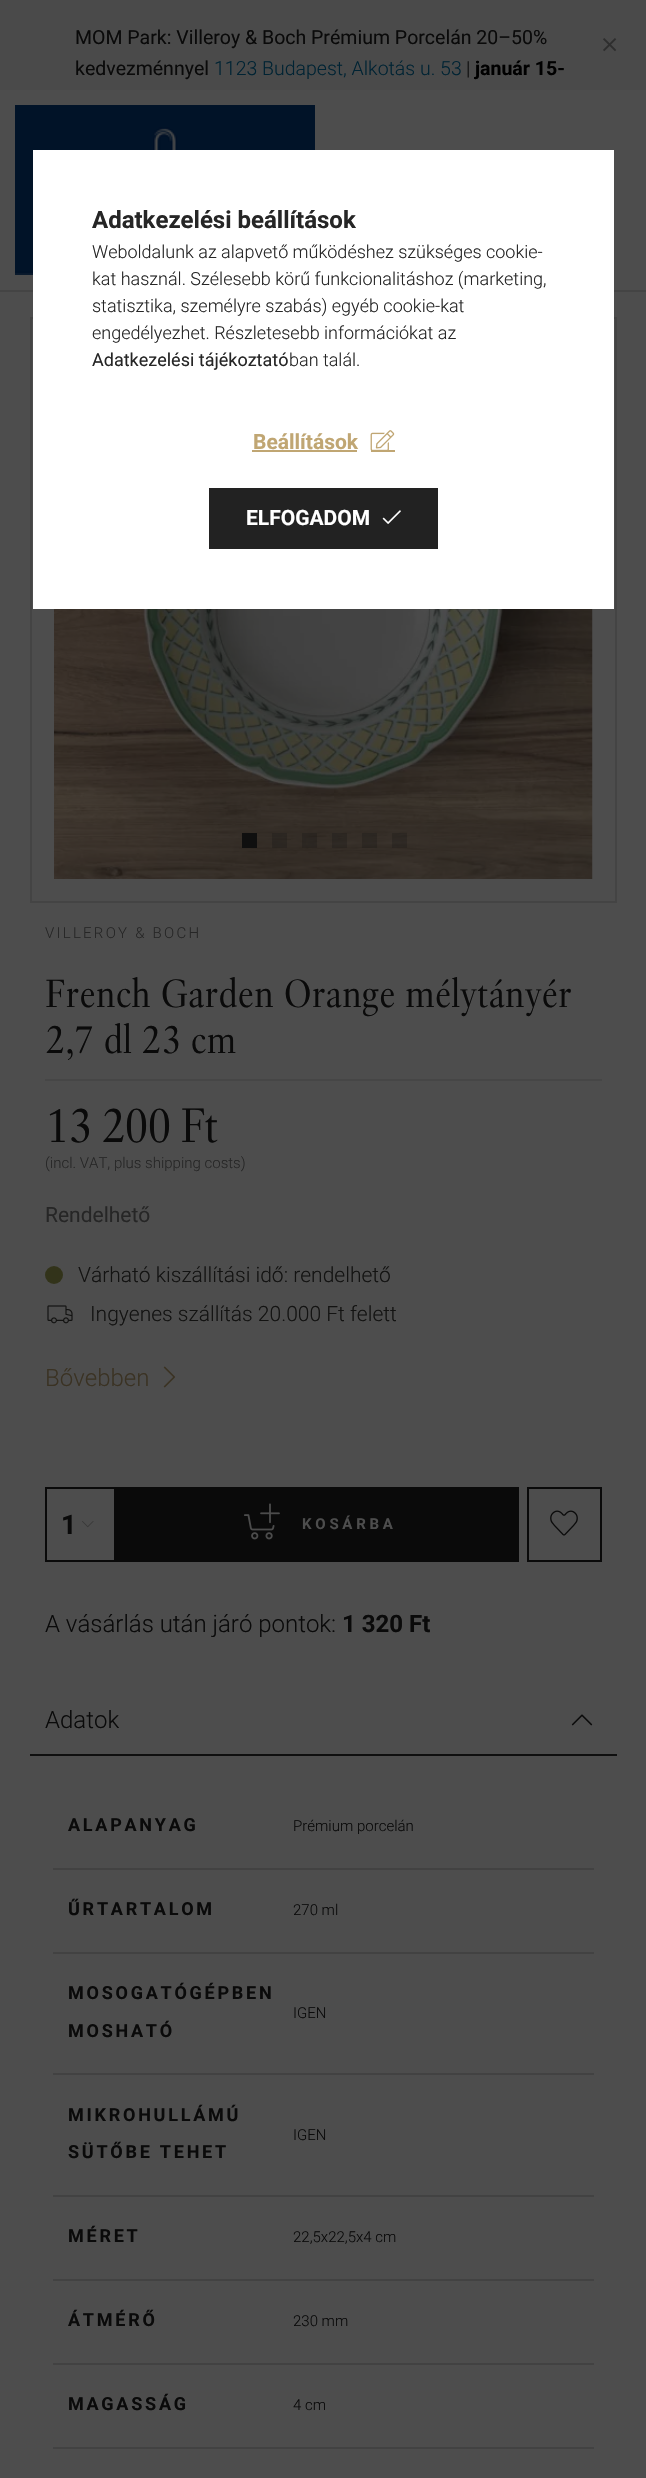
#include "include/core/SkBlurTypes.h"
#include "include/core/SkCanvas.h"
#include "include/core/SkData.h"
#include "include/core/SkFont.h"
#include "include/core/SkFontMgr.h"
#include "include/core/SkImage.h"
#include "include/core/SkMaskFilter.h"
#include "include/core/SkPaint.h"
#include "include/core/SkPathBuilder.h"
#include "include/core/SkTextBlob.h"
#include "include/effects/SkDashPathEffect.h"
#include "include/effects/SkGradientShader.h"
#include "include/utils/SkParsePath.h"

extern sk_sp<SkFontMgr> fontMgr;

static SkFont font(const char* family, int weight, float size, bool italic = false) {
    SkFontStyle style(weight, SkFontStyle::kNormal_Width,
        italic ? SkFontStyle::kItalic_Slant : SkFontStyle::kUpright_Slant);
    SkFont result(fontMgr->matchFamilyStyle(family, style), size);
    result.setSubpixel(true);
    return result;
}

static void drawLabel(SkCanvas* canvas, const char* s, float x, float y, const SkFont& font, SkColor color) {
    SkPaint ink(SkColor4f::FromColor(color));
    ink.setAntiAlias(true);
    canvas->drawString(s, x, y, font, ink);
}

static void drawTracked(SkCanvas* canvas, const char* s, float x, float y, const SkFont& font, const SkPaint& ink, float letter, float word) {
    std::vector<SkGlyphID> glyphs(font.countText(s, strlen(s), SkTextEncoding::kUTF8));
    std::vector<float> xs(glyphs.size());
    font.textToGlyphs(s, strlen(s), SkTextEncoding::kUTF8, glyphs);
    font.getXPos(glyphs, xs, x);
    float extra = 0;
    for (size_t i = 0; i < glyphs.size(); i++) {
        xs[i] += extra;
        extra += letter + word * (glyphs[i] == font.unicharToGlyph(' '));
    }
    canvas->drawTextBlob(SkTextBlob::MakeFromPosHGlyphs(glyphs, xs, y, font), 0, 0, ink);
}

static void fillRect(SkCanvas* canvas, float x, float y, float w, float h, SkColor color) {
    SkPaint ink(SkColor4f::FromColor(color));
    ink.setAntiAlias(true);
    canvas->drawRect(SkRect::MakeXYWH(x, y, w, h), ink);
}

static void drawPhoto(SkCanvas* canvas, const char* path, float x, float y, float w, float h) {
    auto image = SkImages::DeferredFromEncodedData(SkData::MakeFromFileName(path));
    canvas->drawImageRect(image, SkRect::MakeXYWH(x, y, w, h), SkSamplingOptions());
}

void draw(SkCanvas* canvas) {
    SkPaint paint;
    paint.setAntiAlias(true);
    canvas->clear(0xFF4D4D4D);
    fillRect(canvas, 0, 0, 646, 90, 0xFF4A4A4A);
    SkFont font1 = font("Roboto", 400, 19.5f);
    drawLabel(canvas, "MOM Park: Villeroy & Boch Prémium Porcelán 20–50%", 75, 44, font1, 0xFF0A0A0A);
    drawLabel(canvas, "kedvezménnyel", 75, 75, font1, 0xFF0A0A0A);
    SkFont font2 = font("Roboto", 300, 19.5f);
    drawLabel(canvas, "1123 Budapest, Alkotás u. 53", 214, 75, font2, 0xFF002333);
    drawLabel(canvas, "|", 466, 75, font2, 0xFF0A0A0A);
    SkFont font3 = font("Roboto", 700, 19.5f);
    drawLabel(canvas, "január 15-", 475, 75, font3, 0xFF000000);
    drawPhoto(canvas, "assets/img1.png", 603, 38, 14, 14);
    fillRect(canvas, 0, 290, 646, 2, 0xFF444444);
    drawPhoto(canvas, "assets/img2.png", 15, 105, 300, 170);
    paint.setStroke(true);
    paint.setStrokeWidth(2);
    paint.setColor(0xFF444444);
    canvas->drawRect(SkRect::MakeXYWH(31, 318, 585, 584), paint);
    drawPhoto(canvas, "assets/img3.png", 54, 609, 539, 270);
    fillRect(canvas, 242, 833, 15, 15, 0xFF0F0F0F);
    fillRect(canvas, 272, 833, 15, 15, 0x400F0F0F);
    fillRect(canvas, 302, 833, 15, 15, 0x400F0F0F);
    fillRect(canvas, 332, 833, 15, 15, 0x400F0F0F);
    fillRect(canvas, 362, 833, 15, 15, 0x400F0F0F);
    fillRect(canvas, 392, 833, 15, 15, 0x400F0F0F);
    SkFont font4 = font("Roboto", 300, 15);
    paint.setStroke(false);
    paint.setColor(0xFF262626);
    drawTracked(canvas, "VILLEROY & BOCH", 45, 938, font4, paint, 2.25f, 0);
    fillRect(canvas, 45, 1079, 557, 2, 0xFF464646);
    SkFont font5 = font("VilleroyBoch", 400, 39);
    drawLabel(canvas, "French Garden Orange mélytányér", 45, 1007, font5, 0xFF0A0A0A);
    drawLabel(canvas, "2,7 dl 23 cm", 45, 1053, font5, 0xFF0A0A0A);
    SkFont font6 = font("VilleroyBoch", 400, 48);
    paint.setColor(0xFF0A0A0A);
    drawTracked(canvas, "13 200 Ft", 45, 1142, font6, paint, -1.5f, 0);
    drawLabel(canvas, "(incl. VAT, plus shipping costs)", 45, 1168, font4, 0xFF262626);
    SkFont font7 = font("Roboto", 400, 21);
    drawLabel(canvas, "Rendelhető", 45, 1222, font7, 0xFF262626);
    paint.setColor(0xFF32331A);
    canvas->drawCircle(54, 1275, 9, paint);
    SkFont font8 = font("Roboto", 300, 21);
    drawLabel(canvas, "Várható kiszállítási idő: rendelhető", 78, 1282, font8, 0xFF131312);
    drawPhoto(canvas, "assets/img4.png", 47, 1305, 26, 19);
    drawLabel(canvas, "Ingyenes szállítás 20.000 Ft felett", 90, 1321, font8, 0xFF131312);
    SkFont font9 = font("Roboto", 300, 24);
    drawLabel(canvas, "Bővebben", 45, 1386, font9, 0xFF3A3223);
    drawPhoto(canvas, "assets/img5.png", 163, 1366, 13, 22);
    paint.setStroke(true);
    paint.setColor(0xFF0A0A0A);
    canvas->drawRect(SkRect::MakeXYWH(46, 1488, 69, 73), paint);
    SkFont font10 = font("Roboto", 700, 27);
    drawLabel(canvas, "1", 61, 1534, font10, 0xFF0A0A0A);
    drawPhoto(canvas, "assets/img6.png", 82, 1521, 12, 7);
    paint.setStroke(false);
    {
        const SkColor colors[] = {0xFF3A3223, 0xFF261F17, 0xFF0A0A0A, 0xFF0A0A0A};
        const float stops[] = {0, 0.33f, 0.67f, 1};
        const SkPoint ends[] = {{-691, 1524}, {519, 1524}};
        paint.setShader(SkGradientShader::MakeLinear(ends, colors, stops, 4, SkTileMode::kClamp));
        paint.setAlpha(255);
    }
    canvas->drawRect(SkRect::MakeXYWH(116, 1487, 403, 75), paint);
    drawPhoto(canvas, "assets/img7.png", 244, 1503, 36, 37);
    SkFont font11 = font("Roboto", 700, 15);
    paint.setShader(nullptr);
    paint.setColor(0xFF4D4D4D);
    drawTracked(canvas, "KOSÁRBA", 302, 1529, font11, paint, 3.75f, 0);
    paint.setStroke(true);
    paint.setColor(0xFF0A0A0A);
    canvas->drawRect(SkRect::MakeXYWH(528, 1488, 73, 73), paint);
    drawPhoto(canvas, "assets/img8.png", 550, 1510, 28, 26);
    drawLabel(canvas, "A vásárlás után járó pontok:", 45, 1632, font9, 0xFF0A0A0A);
    SkFont font12 = font("Roboto", 700, 24);
    drawLabel(canvas, "1 320 Ft", 342, 1632, font12, 0xFF0A0A0A);
    fillRect(canvas, 30, 1754, 587, 2, 0xFF0F0F0F);
    drawLabel(canvas, "Adatok", 45, 1728, font9, 0xFF0A0A0A);
    drawPhoto(canvas, "assets/img9.png", 571, 1714, 22, 12);
    SkFont font13 = font("Roboto", 700, 18);
    paint.setStroke(false);
    drawTracked(canvas, "ALAPANYAG", 68, 1831, font13, paint, 2.75f, 0);
    drawLabel(canvas, "Prémium porcelán", 293, 1831, font4, 0xFF0A0A0A);
    fillRect(canvas, 53, 1868, 541, 2, 0xFF424242);
    drawTracked(canvas, "ŰRTARTALOM", 68, 1915, font13, paint, 2.75f, 0);
    drawLabel(canvas, "270 ml", 293, 1915, font4, 0xFF0A0A0A);
    fillRect(canvas, 53, 1952, 541, 2, 0xFF424242);
    drawTracked(canvas, "MOSOGATÓGÉPBEN", 68, 1999, font13, paint, 2.75f, 0);
    drawTracked(canvas, "MOSHATÓ", 68, 2037, font13, paint, 2.75f, 0);
    drawLabel(canvas, "IGEN", 293, 2018, font4, 0xFF0A0A0A);
    fillRect(canvas, 53, 2073, 541, 2, 0xFF424242);
    drawTracked(canvas, "MIKROHULLÁMÚ", 68, 2121, font13, paint, 2.75f, 0);
    drawTracked(canvas, "SÜTŐBE TEHET", 68, 2158, font13, paint, 2.75f, 0);
    drawLabel(canvas, "IGEN", 293, 2140, font4, 0xFF0A0A0A);
    fillRect(canvas, 53, 2195, 541, 2, 0xFF424242);
    drawTracked(canvas, "MÉRET", 68, 2242, font13, paint, 2.75f, 0);
    drawLabel(canvas, "22,5x22,5x4 cm", 293, 2242, font4, 0xFF0A0A0A);
    fillRect(canvas, 53, 2279, 541, 2, 0xFF424242);
    drawTracked(canvas, "ÁTMÉRŐ", 68, 2326, font13, paint, 2.75f, 0);
    drawLabel(canvas, "230 mm", 293, 2326, font4, 0xFF0A0A0A);
    fillRect(canvas, 53, 2363, 541, 2, 0xFF424242);
    drawTracked(canvas, "MAGASSÁG", 68, 2410, font13, paint, 2.75f, 0);
    drawLabel(canvas, "4 cm", 293, 2410, font4, 0xFF0A0A0A);
    fillRect(canvas, 53, 2447, 541, 2, 0xFF424242);
    fillRect(canvas, 33, 150, 581, 459, 0xFFFFFFFF);
    drawLabel(canvas, "Adatkezelési beállítások", 92, 228, font12, 0xFF262626);
    SkFont font14 = font("Roboto", 300, 18);
    drawLabel(canvas, "Weboldalunk az alapvető működéshez szükséges cookie-", 92, 258, font14, 0xFF262626);
    drawLabel(canvas, "kat használ. Szélesebb körű funkcionalitáshoz (marketing,", 92, 285, font14, 0xFF262626);
    drawLabel(canvas, "statisztika, személyre szabás) egyéb cookie-kat", 92, 312, font14, 0xFF262626);
    drawLabel(canvas, "engedélyezhet. Részletesebb információkat az", 92, 339, font14, 0xFF262626);
    SkFont font15 = font("Roboto", 400, 18);
    drawLabel(canvas, "Adatkezelési tájékoztató", 92, 366, font15, 0xFF262626);
    drawLabel(canvas, "ban talál.", 289, 366, font14, 0xFF262626);
    SkFont font16 = font("Roboto", 700, 21);
    drawLabel(canvas, "Beállítások", 253, 449, font16, 0xFFC0A673);
    fillRect(canvas, 252, 450, 105, 2, 0xFFC0A673);
    fillRect(canvas, 371, 450, 24, 2, 0xFFC0A673);
    drawPhoto(canvas, "assets/img10.png", 370, 430, 25, 21);
    {
        const SkColor colors[] = {0xFFC0A673, 0xFF80674D, 0xFF222222, 0xFF222222};
        const float stops[] = {0, 0.33f, 0.67f, 1};
        const SkPoint ends[] = {{-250, 518}, {438, 518}};
        paint.setShader(SkGradientShader::MakeLinear(ends, colors, stops, 4, SkTileMode::kClamp));
        paint.setAlpha(255);
    }
    canvas->drawRect(SkRect::MakeXYWH(209, 488, 229, 61), paint);
    drawLabel(canvas, "ELFOGADOM", 246, 525, font16, 0xFFFFFFFF);
    drawPhoto(canvas, "assets/img11.png", 382, 510, 19, 14);
}
